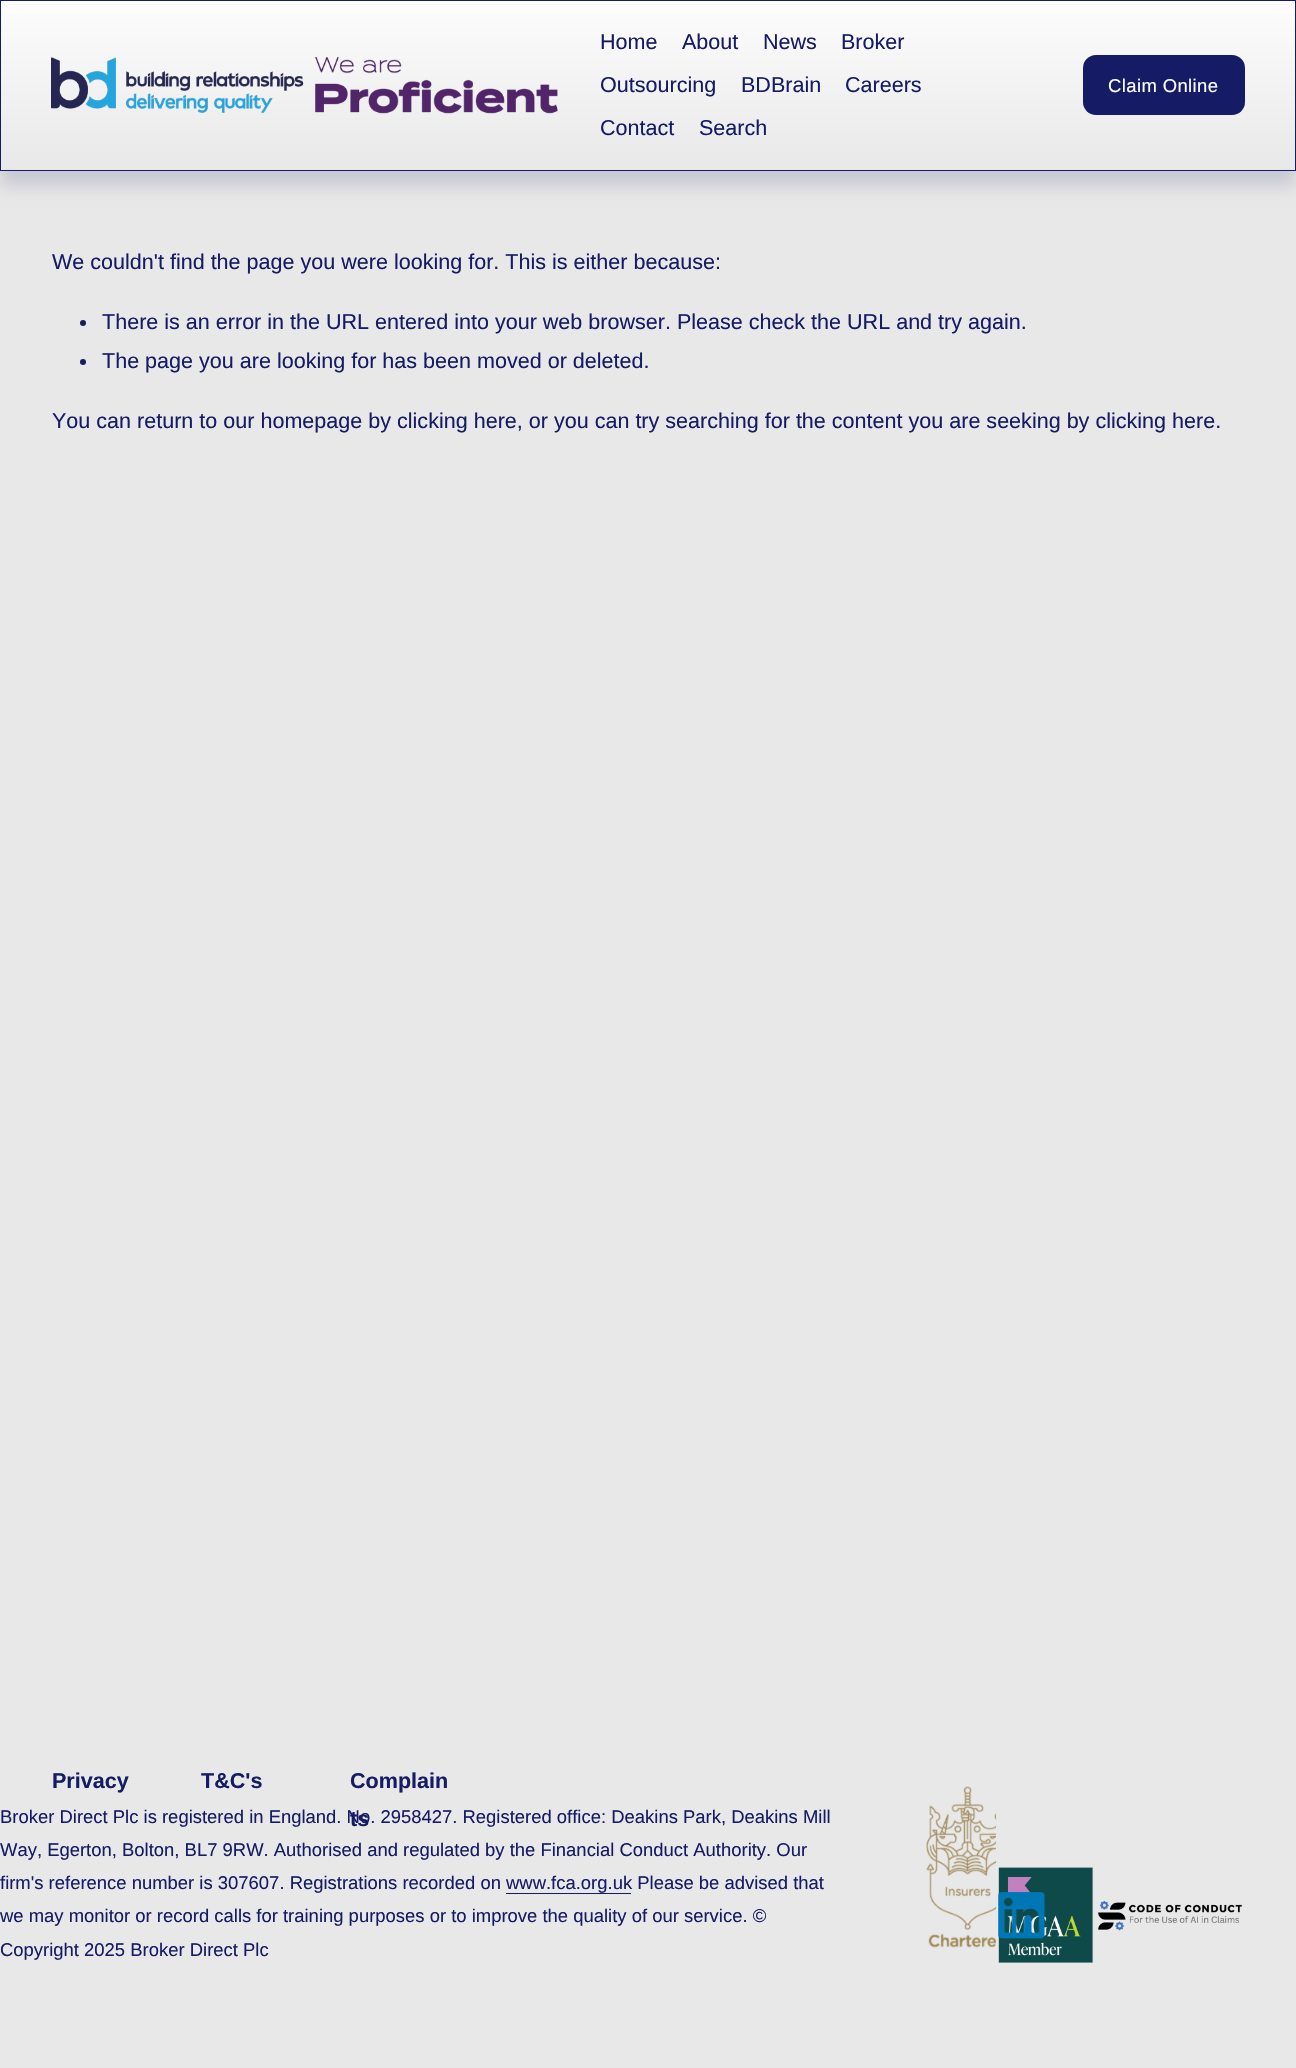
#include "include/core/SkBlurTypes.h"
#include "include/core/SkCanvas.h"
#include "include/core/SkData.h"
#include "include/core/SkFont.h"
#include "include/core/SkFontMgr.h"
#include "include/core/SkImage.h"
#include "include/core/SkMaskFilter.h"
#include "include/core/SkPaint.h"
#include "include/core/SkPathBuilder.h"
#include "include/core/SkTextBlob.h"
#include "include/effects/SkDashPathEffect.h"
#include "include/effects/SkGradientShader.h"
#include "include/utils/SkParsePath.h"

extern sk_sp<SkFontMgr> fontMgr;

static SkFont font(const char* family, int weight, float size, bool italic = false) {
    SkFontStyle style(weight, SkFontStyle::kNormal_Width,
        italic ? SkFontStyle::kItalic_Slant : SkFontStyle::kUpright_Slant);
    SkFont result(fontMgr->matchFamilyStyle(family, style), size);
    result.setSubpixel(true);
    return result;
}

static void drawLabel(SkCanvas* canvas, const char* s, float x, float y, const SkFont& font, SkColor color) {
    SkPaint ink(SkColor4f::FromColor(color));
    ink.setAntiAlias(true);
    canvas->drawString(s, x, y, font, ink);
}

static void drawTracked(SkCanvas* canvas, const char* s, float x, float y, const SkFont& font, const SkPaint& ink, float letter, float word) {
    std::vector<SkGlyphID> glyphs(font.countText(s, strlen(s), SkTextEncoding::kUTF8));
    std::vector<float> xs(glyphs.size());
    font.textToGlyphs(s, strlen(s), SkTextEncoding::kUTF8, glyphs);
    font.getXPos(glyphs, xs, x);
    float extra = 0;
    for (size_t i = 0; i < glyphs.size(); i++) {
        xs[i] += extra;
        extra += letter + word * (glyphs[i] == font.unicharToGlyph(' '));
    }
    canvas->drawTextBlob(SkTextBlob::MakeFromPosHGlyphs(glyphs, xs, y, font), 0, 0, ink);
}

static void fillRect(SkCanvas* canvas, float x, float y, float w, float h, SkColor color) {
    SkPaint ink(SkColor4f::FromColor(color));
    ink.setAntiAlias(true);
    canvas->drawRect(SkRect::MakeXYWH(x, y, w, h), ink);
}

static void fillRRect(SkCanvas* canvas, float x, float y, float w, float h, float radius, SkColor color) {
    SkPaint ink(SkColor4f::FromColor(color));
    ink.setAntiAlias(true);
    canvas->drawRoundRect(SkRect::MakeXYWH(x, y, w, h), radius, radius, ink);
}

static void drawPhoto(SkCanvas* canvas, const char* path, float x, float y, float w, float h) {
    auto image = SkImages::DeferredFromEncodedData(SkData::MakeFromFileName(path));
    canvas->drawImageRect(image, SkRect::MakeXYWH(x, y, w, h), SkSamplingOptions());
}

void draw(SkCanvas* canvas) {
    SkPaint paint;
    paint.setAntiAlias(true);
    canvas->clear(0xFFE8E8E8);
    paint.setColor(0xFFC9C9D4);
    paint.setMaskFilter(SkMaskFilter::MakeBlur(kNormal_SkBlurStyle, 7.5f));
    canvas->drawRect(SkRect::MakeXYWH(0, 15, 1296, 171), paint);
    paint.setMaskFilter(nullptr);
    {
        const SkColor colors[] = {0xFFFDFDFD, 0xFFE8E8E8};
        const float stops[] = {0, 1};
        const SkPoint ends[] = {{648, 0}, {648, 171}};
        paint.setShader(SkGradientShader::MakeLinear(ends, colors, stops, 2, SkTileMode::kClamp));
        paint.setAlpha(255);
    }
    canvas->drawRect(SkRect::MakeXYWH(1, 1, 1294, 169), paint);
    paint.setStroke(true);
    paint.setStrokeWidth(1);
    paint.setShader(nullptr);
    paint.setColor(0xFF161B65);
    canvas->drawRect(SkRect::MakeXYWH(0.5f, 0.5f, 1295, 170), paint);
    drawPhoto(canvas, "assets/img1.png", 51, 56, 507, 58);
    SkFont font1 = font("Liberation Sans", 400, 21.55f);
    drawLabel(canvas, "Home", 600, 49, font1, 0xFF161B65);
    drawLabel(canvas, "About", 682, 49, font1, 0xFF161B65);
    drawLabel(canvas, "News", 763, 49, font1, 0xFF161B65);
    drawLabel(canvas, "Broker", 841, 49, font1, 0xFF161B65);
    drawLabel(canvas, "Outsourcing", 600, 92, font1, 0xFF161B65);
    drawLabel(canvas, "BDBrain", 741, 92, font1, 0xFF161B65);
    drawLabel(canvas, "Careers", 845, 92, font1, 0xFF161B65);
    drawLabel(canvas, "Contact", 600, 135, font1, 0xFF161B65);
    drawLabel(canvas, "Search", 699, 135, font1, 0xFF161B65);
    fillRRect(canvas, 1083, 55, 162, 60, 13, 0xFF161B65);
    SkFont font2 = font("Liberation Sans", 400, 18.45f);
    paint.setStroke(false);
    paint.setColor(0xFFFFFFFF);
    drawTracked(canvas, "Claim Online", 1108, 92, font2, paint, 0.4f, 0);
    drawLabel(canvas, "We couldn't find the page you were looking for. This is either because:", 52, 269, font1, 0xFF161B65);
    paint.setColor(0xFF161B65);
    canvas->drawCircle(83, 323, 3, paint);
    drawLabel(canvas, "There is an error in the URL entered into your web browser. Please check the URL and try again.", 102, 329, font1, 0xFF161B65);
    canvas->drawCircle(83, 362, 3, paint);
    drawLabel(canvas, "The page you are looking for has been moved or deleted.", 102, 368, font1, 0xFF161B65);
    drawLabel(canvas, "You can return to our homepage by clicking here, or you can try searching for the content you are seeking by clicking here.", 52, 428, font1, 0xFF161B65);
    SkFont font3 = font("Liberation Sans", 700, 21.55f);
    drawLabel(canvas, "Privacy", 52, 1788, font3, 0xFF161B65);
    drawLabel(canvas, "T&C's", 201, 1788, font3, 0xFF161B65);
    drawLabel(canvas, "Complain", 350, 1788, font3, 0xFF161B65);
    drawLabel(canvas, "Broker Direct Plc is registered in England. No. 2958427. Registered office: Deakins Park, Deakins Mill", 0, 1823, font2, 0xFF161B65);
    drawLabel(canvas, "ts", 350, 1826, font3, 0xFF161B65);
    drawPhoto(canvas, "assets/img2.png", 926, 1786, 71, 162);
    drawLabel(canvas, "Way, Egerton, Bolton, BL7 9RW. Authorised and regulated by the Financial Conduct Authority. Our", 0, 1856, font2, 0xFF161B65);
    drawLabel(canvas, "firm's reference number is 307607. Registrations recorded on www.fca.org.uk Please be advised that", 0, 1889, font2, 0xFF161B65);
    fillRect(canvas, 506, 1893, 125, 1, 0xFF161B65);
    drawLabel(canvas, "we may monitor or record calls for training purposes or to improve the quality of our service. ©", 0, 1922, font2, 0xFF161B65);
    drawLabel(canvas, "Copyright 2025 Broker Direct Plc", 0, 1956, font2, 0xFF161B65);
    drawPhoto(canvas, "assets/img3.png", 998, 1867, 95, 96);
    drawPhoto(canvas, "assets/img4.png", 998, 1892, 48, 47);
    drawPhoto(canvas, "assets/img5.png", 1098, 1900, 144, 31);
}
